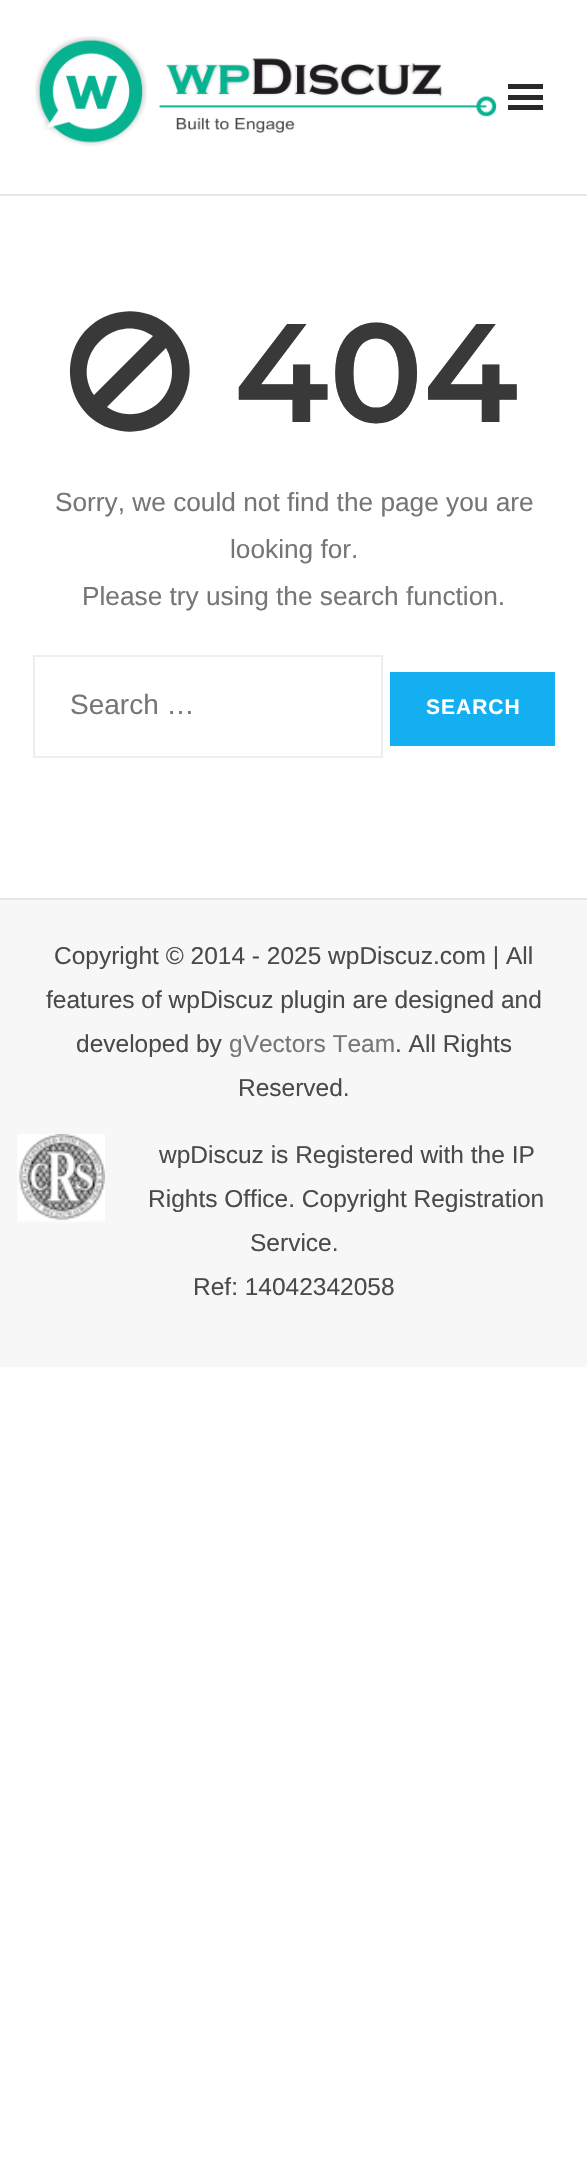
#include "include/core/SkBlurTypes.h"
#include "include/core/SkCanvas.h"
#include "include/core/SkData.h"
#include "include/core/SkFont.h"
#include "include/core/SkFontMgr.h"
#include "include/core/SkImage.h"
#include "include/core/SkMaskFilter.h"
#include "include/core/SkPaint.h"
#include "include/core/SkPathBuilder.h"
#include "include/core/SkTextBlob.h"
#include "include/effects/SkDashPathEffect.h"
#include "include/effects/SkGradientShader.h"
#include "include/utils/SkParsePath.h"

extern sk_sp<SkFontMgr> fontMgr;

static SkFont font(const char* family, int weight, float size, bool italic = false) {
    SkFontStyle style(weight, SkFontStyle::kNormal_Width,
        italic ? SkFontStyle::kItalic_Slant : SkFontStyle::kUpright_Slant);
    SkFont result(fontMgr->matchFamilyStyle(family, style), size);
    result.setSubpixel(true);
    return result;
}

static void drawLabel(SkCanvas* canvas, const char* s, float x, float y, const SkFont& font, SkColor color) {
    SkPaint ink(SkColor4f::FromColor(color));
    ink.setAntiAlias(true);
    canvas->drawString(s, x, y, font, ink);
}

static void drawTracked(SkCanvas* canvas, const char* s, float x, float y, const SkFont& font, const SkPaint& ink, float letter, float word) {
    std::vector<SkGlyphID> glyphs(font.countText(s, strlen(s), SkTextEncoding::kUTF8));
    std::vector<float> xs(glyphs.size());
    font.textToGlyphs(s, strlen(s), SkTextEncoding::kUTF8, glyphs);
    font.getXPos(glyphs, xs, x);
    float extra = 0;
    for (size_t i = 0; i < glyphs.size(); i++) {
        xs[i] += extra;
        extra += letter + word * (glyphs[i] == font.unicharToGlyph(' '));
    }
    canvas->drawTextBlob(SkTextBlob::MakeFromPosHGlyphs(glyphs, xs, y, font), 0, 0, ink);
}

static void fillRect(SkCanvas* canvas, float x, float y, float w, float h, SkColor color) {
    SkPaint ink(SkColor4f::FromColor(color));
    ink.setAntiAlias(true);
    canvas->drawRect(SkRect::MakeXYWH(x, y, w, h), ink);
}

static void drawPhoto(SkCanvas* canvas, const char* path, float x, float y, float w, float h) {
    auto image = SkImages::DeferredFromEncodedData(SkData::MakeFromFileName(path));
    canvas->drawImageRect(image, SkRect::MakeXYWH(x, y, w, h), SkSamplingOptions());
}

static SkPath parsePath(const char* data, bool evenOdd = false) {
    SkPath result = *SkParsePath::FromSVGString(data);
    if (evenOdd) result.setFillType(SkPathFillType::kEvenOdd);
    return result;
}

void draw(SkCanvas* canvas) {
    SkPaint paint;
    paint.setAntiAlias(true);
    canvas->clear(0xFFFFFFFF);
    fillRect(canvas, 0, 194, 587, 2, 0xFFE5E5E5);
    drawPhoto(canvas, "assets/img1.png", 35, 36, 462, 110);
    fillRect(canvas, 508, 84, 35, 5, 0xFF292929);
    fillRect(canvas, 508, 95, 35, 5, 0xFF292929);
    fillRect(canvas, 508, 105, 35, 5, 0xFF292929);
    paint.setColor(0xFF3A3939);
    canvas->drawPath(parsePath("M172 372C172 363 170 355 166 348L107 407C135 426 172 405 172 372ZM94 395L153 336C115 310 69 356 94 395ZM185 348C198 378 183 414 153 427C139 433 124 433 109 428C60 410 56 340 104 317C115 312 127 310 139 312C160 315 177 329 185 348Z"), paint);
    SkFont font1 = font("Montserrat", 600, 140);
    drawLabel(canvas, "404", 234, 422, font1, 0xFF3A3939);
    SkFont font2 = font("Liberation Sans", 400, 26.25f);
    drawLabel(canvas, "Sorry, we could not find the page you are", 55, 511, font2, 0xFF767676);
    drawLabel(canvas, "looking for.", 230, 558, font2, 0xFF767676);
    drawLabel(canvas, "Please try using the search function.", 82, 605, font2, 0xFF767676);
    paint.setStroke(true);
    paint.setStrokeWidth(2);
    paint.setColor(0xFFEEEEEE);
    canvas->drawRect(SkRect::MakeXYWH(34, 656, 348, 101), paint);
    SkFont font3 = font("Liberation Sans", 400, 28);
    drawLabel(canvas, "Search …", 70, 714, font3, 0xFF767676);
    fillRect(canvas, 390, 672, 165, 74, 0xFF13AFF0);
    SkFont font4 = font("Liberation Sans", 700, 21);
    paint.setStroke(false);
    paint.setColor(0xFFFFFFFF);
    drawTracked(canvas, "SEARCH", 426, 714, font4, paint, 1, 0);
    fillRect(canvas, 0, 900, 587, 467, 0xFFF7F7F7);
    fillRect(canvas, 0, 898, 587, 2, 0xFFE7E7E7);
    SkFont font5 = font("Liberation Sans", 400, 24.5f);
    drawLabel(canvas, "Copyright © 2014 - 2025 wpDiscuz.com | All", 54, 964, font5, 0xFF4A4A4A);
    drawLabel(canvas, "features of wpDiscuz plugin are designed and", 46, 1008, font5, 0xFF4A4A4A);
    drawLabel(canvas, "developed by", 76, 1052, font5, 0xFF4A4A4A);
    drawLabel(canvas, "gVectors Team", 229, 1052, font5, 0xFF767676);
    drawLabel(canvas, ". All Rights", 395, 1052, font5, 0xFF4A4A4A);
    drawLabel(canvas, "Reserved.", 238, 1096, font5, 0xFF4A4A4A);
    drawPhoto(canvas, "assets/img2.png", 17, 1134, 88, 88);
    drawLabel(canvas, "wpDiscuz is Registered with the IP", 159, 1163, font5, 0xFF4A4A4A);
    drawLabel(canvas, "Rights Office. Copyright Registration", 148, 1207, font5, 0xFF4A4A4A);
    drawLabel(canvas, "Service.", 250, 1251, font5, 0xFF4A4A4A);
    drawLabel(canvas, "Ref: 14042342058", 193, 1295, font5, 0xFF4A4A4A);
}
